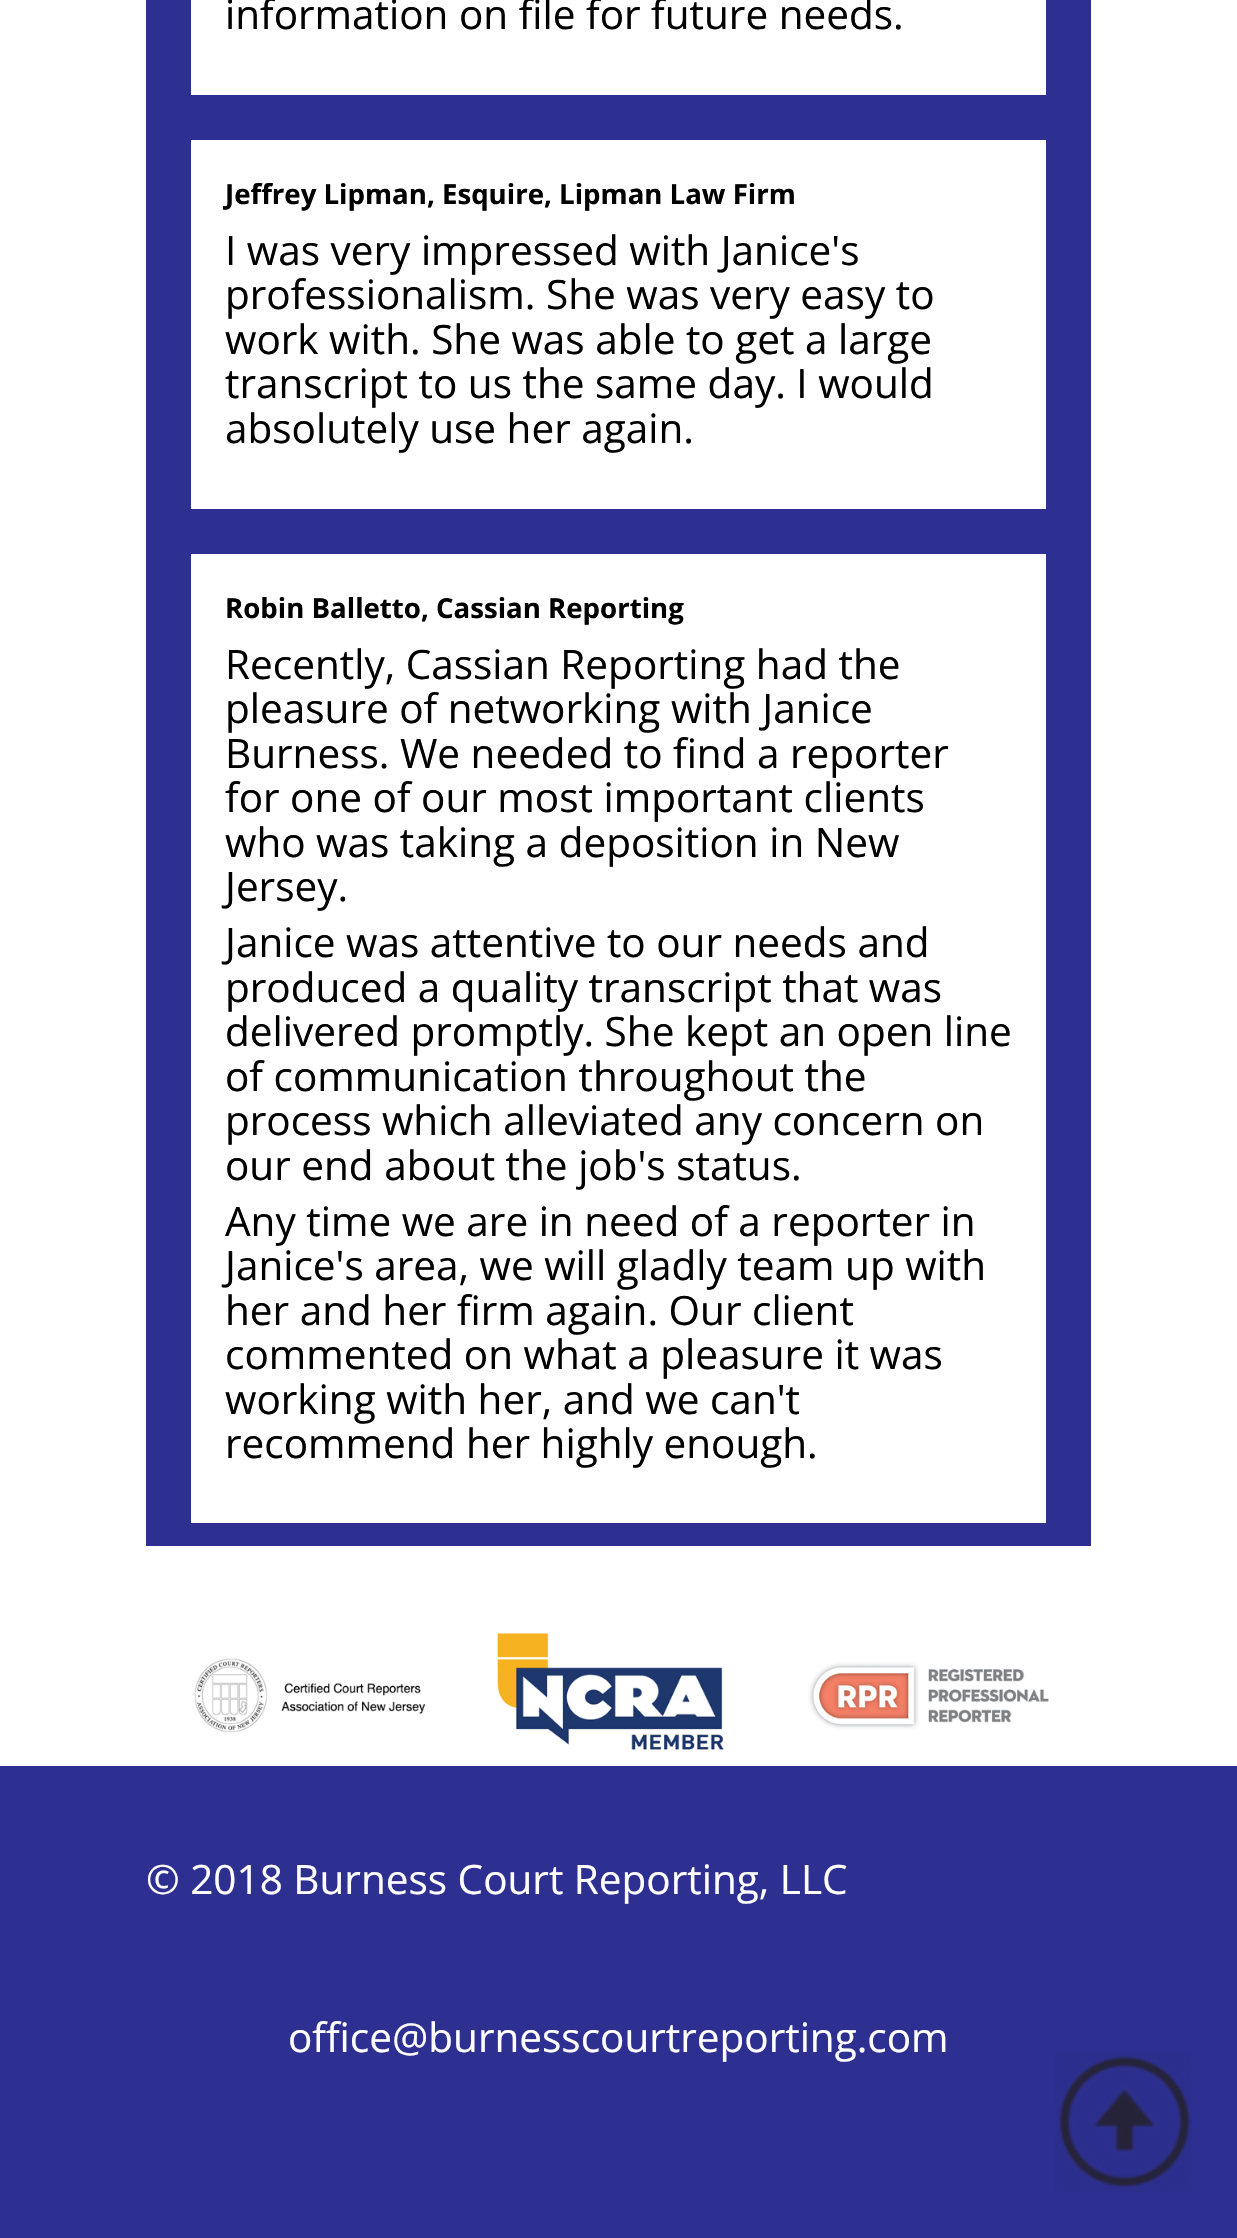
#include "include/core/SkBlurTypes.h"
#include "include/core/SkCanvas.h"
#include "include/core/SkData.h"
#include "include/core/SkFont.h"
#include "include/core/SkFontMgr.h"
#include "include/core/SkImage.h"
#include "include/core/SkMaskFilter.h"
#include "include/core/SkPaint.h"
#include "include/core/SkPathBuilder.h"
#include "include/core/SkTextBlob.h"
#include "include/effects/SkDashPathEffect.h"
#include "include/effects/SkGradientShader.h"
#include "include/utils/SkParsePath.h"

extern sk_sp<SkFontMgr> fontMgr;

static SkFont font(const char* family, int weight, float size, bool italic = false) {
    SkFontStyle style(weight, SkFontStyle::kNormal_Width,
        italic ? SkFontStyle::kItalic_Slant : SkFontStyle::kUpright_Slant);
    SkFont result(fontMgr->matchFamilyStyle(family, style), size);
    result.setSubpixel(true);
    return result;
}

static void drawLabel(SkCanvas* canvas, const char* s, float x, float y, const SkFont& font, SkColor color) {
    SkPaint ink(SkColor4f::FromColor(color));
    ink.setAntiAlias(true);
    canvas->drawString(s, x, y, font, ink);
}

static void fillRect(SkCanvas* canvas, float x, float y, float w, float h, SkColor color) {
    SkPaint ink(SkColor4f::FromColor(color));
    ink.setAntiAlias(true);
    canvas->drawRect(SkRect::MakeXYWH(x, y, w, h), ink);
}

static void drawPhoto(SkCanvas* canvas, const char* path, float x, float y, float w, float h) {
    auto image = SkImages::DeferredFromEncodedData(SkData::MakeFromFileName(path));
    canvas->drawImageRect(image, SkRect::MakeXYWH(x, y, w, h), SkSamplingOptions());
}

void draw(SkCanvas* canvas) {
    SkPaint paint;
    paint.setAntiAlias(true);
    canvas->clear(0xFFFFFFFF);
    fillRect(canvas, 146, 0, 945, 1546, 0xFF2D2F91);
    fillRect(canvas, 191, 0, 855, 95, 0xFFFFFFFF);
    SkFont font1 = font("Open Sans", 400, 40.5f);
    drawLabel(canvas, "information on file for future needs.", 225, 29, font1, 0xFF000000);
    fillRect(canvas, 191, 140, 855, 369, 0xFFFFFFFF);
    SkFont font2 = font("Open Sans", 700, 27.6f);
    drawLabel(canvas, "Jeffrey Lipman, Esquire, Lipman Law Firm", 225, 204, font2, 0xFF000000);
    drawLabel(canvas, "I was very impressed with Janice's", 225, 265, font1, 0xFF000000);
    drawLabel(canvas, "professionalism. She was very easy to", 225, 309, font1, 0xFF000000);
    drawLabel(canvas, "work with. She was able to get a large", 225, 354, font1, 0xFF000000);
    drawLabel(canvas, "transcript to us the same day. I would", 225, 398, font1, 0xFF000000);
    drawLabel(canvas, "absolutely use her again.", 225, 443, font1, 0xFF000000);
    fillRect(canvas, 191, 554, 855, 969, 0xFFFFFFFF);
    drawLabel(canvas, "Robin Balletto, Cassian Reporting", 225, 618, font2, 0xFF000000);
    drawLabel(canvas, "Recently, Cassian Reporting had the", 225, 679, font1, 0xFF000000);
    drawLabel(canvas, "pleasure of networking with Janice", 225, 723, font1, 0xFF000000);
    drawLabel(canvas, "Burness. We needed to find a reporter", 225, 768, font1, 0xFF000000);
    drawLabel(canvas, "for one of our most important clients", 225, 812, font1, 0xFF000000);
    drawLabel(canvas, "who was taking a deposition in New", 225, 857, font1, 0xFF000000);
    drawLabel(canvas, "Jersey.", 225, 901, font1, 0xFF000000);
    drawLabel(canvas, "Janice was attentive to our needs and", 225, 957, font1, 0xFF000000);
    drawLabel(canvas, "produced a quality transcript that was", 225, 1002, font1, 0xFF000000);
    drawLabel(canvas, "delivered promptly. She kept an open line", 225, 1046, font1, 0xFF000000);
    drawLabel(canvas, "of communication throughout the", 225, 1091, font1, 0xFF000000);
    drawLabel(canvas, "process which alleviated any concern on", 225, 1135, font1, 0xFF000000);
    drawLabel(canvas, "our end about the job's status.", 225, 1180, font1, 0xFF000000);
    drawLabel(canvas, "Any time we are in need of a reporter in", 225, 1236, font1, 0xFF000000);
    drawLabel(canvas, "Janice's area, we will gladly team up with", 225, 1280, font1, 0xFF000000);
    drawLabel(canvas, "her and her firm again. Our client", 225, 1325, font1, 0xFF000000);
    drawLabel(canvas, "commented on what a pleasure it was", 225, 1369, font1, 0xFF000000);
    drawLabel(canvas, "working with her, and we can't", 225, 1414, font1, 0xFF000000);
    drawLabel(canvas, "recommend her highly enough.", 225, 1458, font1, 0xFF000000);
    drawPhoto(canvas, "assets/img1.png", 194, 1633, 855, 119);
    fillRect(canvas, 0, 1766, 1237, 472, 0xFF2D2F91);
    drawLabel(canvas, "© 2018 Burness Court Reporting, LLC", 146, 1894, font1, 0xFFFFFFFF);
    drawLabel(canvas, "office@burnesscourtreporting.com", 288, 2052, font1, 0xFFFFFFFF);
    drawPhoto(canvas, "assets/img2.png", 1055, 2052, 137, 140);
}
